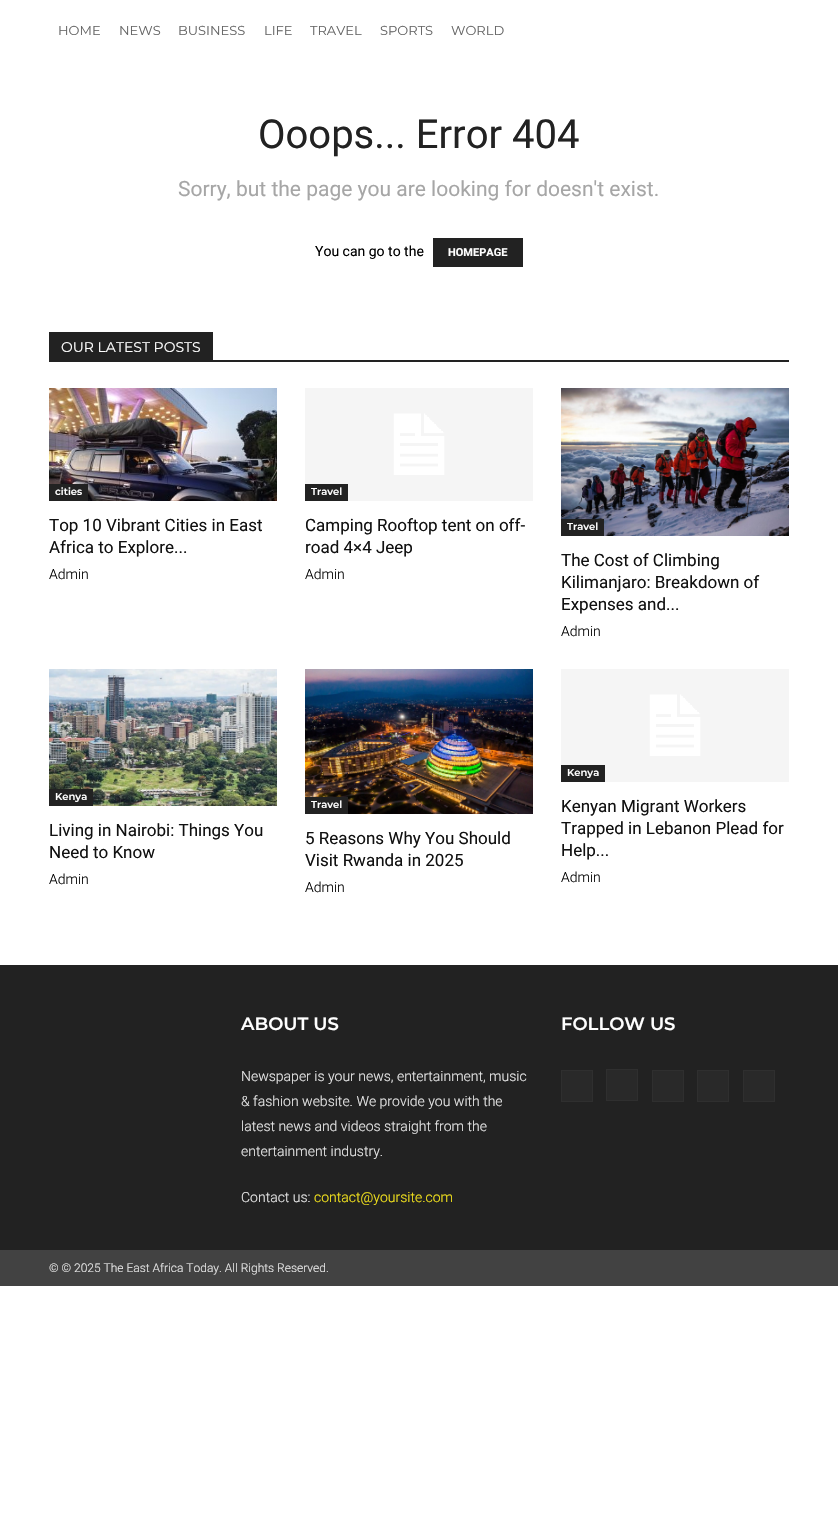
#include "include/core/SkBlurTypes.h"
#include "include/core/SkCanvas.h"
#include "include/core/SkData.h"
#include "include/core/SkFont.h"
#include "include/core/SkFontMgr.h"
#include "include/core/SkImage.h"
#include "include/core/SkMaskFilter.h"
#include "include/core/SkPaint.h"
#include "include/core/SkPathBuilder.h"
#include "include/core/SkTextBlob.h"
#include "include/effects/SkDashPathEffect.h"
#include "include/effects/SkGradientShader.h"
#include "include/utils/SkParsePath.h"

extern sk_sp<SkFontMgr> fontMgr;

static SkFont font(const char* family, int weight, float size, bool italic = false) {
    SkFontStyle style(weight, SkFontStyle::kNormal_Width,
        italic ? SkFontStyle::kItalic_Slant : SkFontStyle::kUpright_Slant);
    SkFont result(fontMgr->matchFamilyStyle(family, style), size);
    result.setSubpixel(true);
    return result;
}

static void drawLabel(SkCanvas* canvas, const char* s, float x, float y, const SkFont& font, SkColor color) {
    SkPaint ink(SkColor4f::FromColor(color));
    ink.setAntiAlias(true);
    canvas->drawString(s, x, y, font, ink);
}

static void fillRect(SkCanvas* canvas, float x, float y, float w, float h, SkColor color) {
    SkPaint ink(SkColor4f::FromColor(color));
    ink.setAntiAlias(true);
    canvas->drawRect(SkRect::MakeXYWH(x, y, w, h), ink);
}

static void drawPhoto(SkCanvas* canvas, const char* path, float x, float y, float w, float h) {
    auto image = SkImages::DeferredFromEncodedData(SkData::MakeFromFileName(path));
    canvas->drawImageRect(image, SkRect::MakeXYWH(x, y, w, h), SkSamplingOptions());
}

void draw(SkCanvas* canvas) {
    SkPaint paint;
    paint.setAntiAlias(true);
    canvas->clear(0xFFFFFFFF);
    SkFont font1 = font("Montserrat", 400, 13);
    drawLabel(canvas, "HOME", 58, 35, font1, 0xFF666666);
    drawLabel(canvas, "NEWS", 119, 35, font1, 0xFF666666);
    drawLabel(canvas, "BUSINESS", 178, 35, font1, 0xFF666666);
    drawLabel(canvas, "LIFE", 264, 35, font1, 0xFF666666);
    drawLabel(canvas, "TRAVEL", 310, 35, font1, 0xFF666666);
    drawLabel(canvas, "SPORTS", 380, 35, font1, 0xFF666666);
    drawLabel(canvas, "WORLD", 451, 35, font1, 0xFF666666);
    SkFont font2 = font("Roboto", 400, 40);
    drawLabel(canvas, "Ooops... Error 404", 258, 148, font2, 0xFF222222);
    SkFont font3 = font("Roboto", 400, 21);
    drawLabel(canvas, "Sorry, but the page you are looking for doesn't exist.", 178, 196, font3, 0xFFA6A6A6);
    SkFont font4 = font("Roboto", 400, 14);
    drawLabel(canvas, "You can go to the", 315, 256, font4, 0xFF000000);
    fillRect(canvas, 433, 238, 90, 29, 0xFF222222);
    SkFont font5 = font("Roboto", 700, 11);
    drawLabel(canvas, "HOMEPAGE", 448, 256, font5, 0xFFFFFFFF);
    fillRect(canvas, 49, 360, 740, 2, 0xFF222222);
    fillRect(canvas, 49, 332, 164, 28, 0xFF222222);
    SkFont font6 = font("Montserrat", 400, 14);
    drawLabel(canvas, "OUR LATEST POSTS", 61, 352, font6, 0xFFFFFFFF);
    drawPhoto(canvas, "assets/img1.png", 49, 388, 228, 113);
    fillRect(canvas, 49, 484, 39, 17, 0xFF222222);
    SkFont font7 = font("Montserrat", 600, 10);
    drawLabel(canvas, "cities", 55, 495, font7, 0xFFFFFFFF);
    SkFont font8 = font("Roboto", 400, 17);
    drawLabel(canvas, "Top 10 Vibrant Cities in East", 49, 531, font8, 0xFF111111);
    drawLabel(canvas, "Africa to Explore...", 49, 553, font8, 0xFF111111);
    SkFont font9 = font("Roboto", 300, 14);
    drawLabel(canvas, "Admin", 49, 579, font9, 0xFF000000);
    drawPhoto(canvas, "assets/img2.png", 305, 388, 228, 113);
    fillRect(canvas, 305, 484, 43, 17, 0xFF222222);
    drawLabel(canvas, "Travel", 311, 495, font7, 0xFFFFFFFF);
    drawLabel(canvas, "Camping Rooftop tent on off-", 305, 531, font8, 0xFF111111);
    drawLabel(canvas, "road 4×4 Jeep", 305, 553, font8, 0xFF111111);
    drawLabel(canvas, "Admin", 305, 579, font9, 0xFF000000);
    drawPhoto(canvas, "assets/img3.png", 561, 388, 228, 148);
    fillRect(canvas, 561, 519, 43, 17, 0xFF222222);
    drawLabel(canvas, "Travel", 567, 530, font7, 0xFFFFFFFF);
    drawLabel(canvas, "The Cost of Climbing", 561, 566, font8, 0xFF111111);
    drawLabel(canvas, "Kilimanjaro: Breakdown of", 561, 588, font8, 0xFF111111);
    drawLabel(canvas, "Expenses and...", 561, 610, font8, 0xFF111111);
    drawLabel(canvas, "Admin", 561, 636, font9, 0xFF000000);
    drawPhoto(canvas, "assets/img4.png", 49, 669, 228, 137);
    fillRect(canvas, 49, 789, 44, 17, 0xFF222222);
    drawLabel(canvas, "Kenya", 55, 800, font7, 0xFFFFFFFF);
    drawLabel(canvas, "Living in Nairobi: Things You", 49, 836, font8, 0xFF111111);
    drawLabel(canvas, "Need to Know", 49, 858, font8, 0xFF111111);
    drawLabel(canvas, "Admin", 49, 884, font9, 0xFF000000);
    drawPhoto(canvas, "assets/img5.png", 305, 669, 228, 145);
    fillRect(canvas, 305, 797, 43, 17, 0xFF222222);
    drawLabel(canvas, "Travel", 311, 808, font7, 0xFFFFFFFF);
    drawLabel(canvas, "5 Reasons Why You Should", 305, 844, font8, 0xFF111111);
    drawLabel(canvas, "Visit Rwanda in 2025", 305, 866, font8, 0xFF111111);
    drawLabel(canvas, "Admin", 305, 892, font9, 0xFF000000);
    drawPhoto(canvas, "assets/img2.png", 561, 669, 228, 113);
    fillRect(canvas, 561, 765, 44, 17, 0xFF222222);
    drawLabel(canvas, "Kenya", 567, 776, font7, 0xFFFFFFFF);
    drawLabel(canvas, "Kenyan Migrant Workers", 561, 812, font8, 0xFF111111);
    drawLabel(canvas, "Trapped in Lebanon Plead for", 561, 834, font8, 0xFF111111);
    drawLabel(canvas, "Help...", 561, 856, font8, 0xFF111111);
    drawLabel(canvas, "Admin", 561, 882, font9, 0xFF000000);
    fillRect(canvas, 0, 965, 838, 285, 0xFF222222);
    SkFont font10 = font("Montserrat", 600, 18);
    drawLabel(canvas, "ABOUT US", 241, 1030, font10, 0xFFFFFFFF);
    drawLabel(canvas, "Newspaper is your news, entertainment, music", 241, 1081, font9, 0xFFEAEAEA);
    drawLabel(canvas, "& fashion website. We provide you with the", 241, 1106, font9, 0xFFEAEAEA);
    drawLabel(canvas, "latest news and videos straight from the", 241, 1131, font9, 0xFFEAEAEA);
    drawLabel(canvas, "entertainment industry.", 241, 1156, font9, 0xFFEAEAEA);
    drawLabel(canvas, "Contact us:", 241, 1202, font9, 0xFFEAEAEA);
    drawLabel(canvas, "contact@yoursite.com", 314, 1202, font9, 0xFFF8E71C);
    drawLabel(canvas, "FOLLOW US", 561, 1030, font10, 0xFFFFFFFF);
    paint.setColor(0xFF292929);
    canvas->drawRect(SkRect::MakeXYWH(561.5f, 1070.5f, 31, 31), paint);
    paint.setStroke(true);
    paint.setStrokeWidth(1);
    paint.setColor(0xFF2F2F2F);
    canvas->drawRect(SkRect::MakeXYWH(561.5f, 1070.5f, 31, 31), paint);
    paint.setStroke(false);
    paint.setColor(0xFF292929);
    canvas->drawRect(SkRect::MakeXYWH(606.5f, 1069.5f, 31, 31), paint);
    paint.setStroke(true);
    paint.setColor(0xFF2F2F2F);
    canvas->drawRect(SkRect::MakeXYWH(606.5f, 1069.5f, 31, 31), paint);
    paint.setStroke(false);
    paint.setColor(0xFF292929);
    canvas->drawRect(SkRect::MakeXYWH(652.5f, 1070.5f, 31, 31), paint);
    paint.setStroke(true);
    paint.setColor(0xFF2F2F2F);
    canvas->drawRect(SkRect::MakeXYWH(652.5f, 1070.5f, 31, 31), paint);
    paint.setStroke(false);
    paint.setColor(0xFF292929);
    canvas->drawRect(SkRect::MakeXYWH(697.5f, 1070.5f, 31, 31), paint);
    paint.setStroke(true);
    paint.setColor(0xFF2F2F2F);
    canvas->drawRect(SkRect::MakeXYWH(697.5f, 1070.5f, 31, 31), paint);
    paint.setStroke(false);
    paint.setColor(0xFF292929);
    canvas->drawRect(SkRect::MakeXYWH(743.5f, 1070.5f, 31, 31), paint);
    paint.setStroke(true);
    paint.setColor(0xFF2F2F2F);
    canvas->drawRect(SkRect::MakeXYWH(743.5f, 1070.5f, 31, 31), paint);
    fillRect(canvas, 0, 1250, 838, 36, 0xFF424242);
    SkFont font11 = font("Roboto", 300, 12);
    drawLabel(canvas, "© © 2025 The East Africa Today. All Rights Reserved.", 49, 1272, font11, 0xFFEAEAEA);
}
